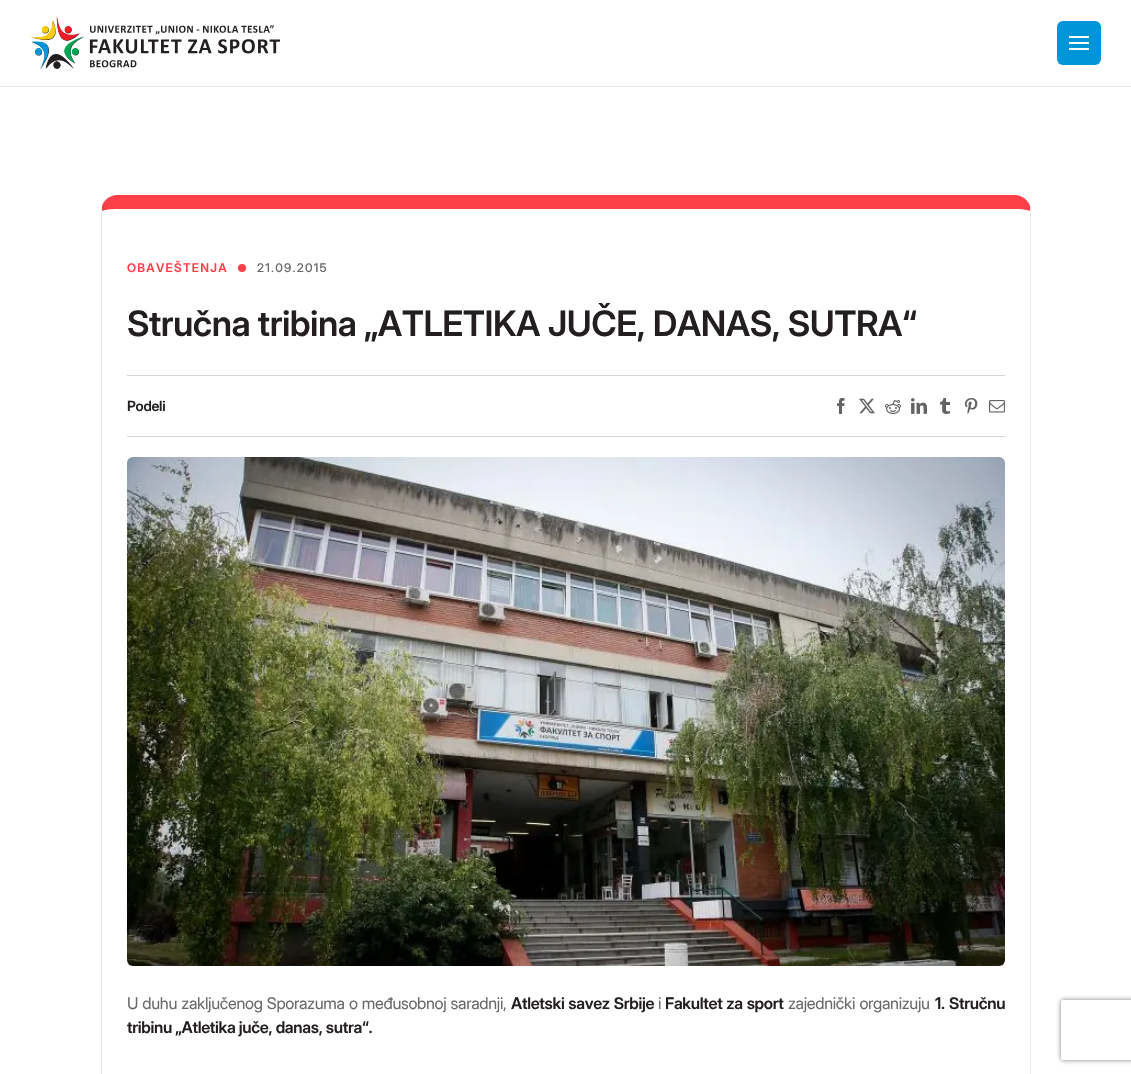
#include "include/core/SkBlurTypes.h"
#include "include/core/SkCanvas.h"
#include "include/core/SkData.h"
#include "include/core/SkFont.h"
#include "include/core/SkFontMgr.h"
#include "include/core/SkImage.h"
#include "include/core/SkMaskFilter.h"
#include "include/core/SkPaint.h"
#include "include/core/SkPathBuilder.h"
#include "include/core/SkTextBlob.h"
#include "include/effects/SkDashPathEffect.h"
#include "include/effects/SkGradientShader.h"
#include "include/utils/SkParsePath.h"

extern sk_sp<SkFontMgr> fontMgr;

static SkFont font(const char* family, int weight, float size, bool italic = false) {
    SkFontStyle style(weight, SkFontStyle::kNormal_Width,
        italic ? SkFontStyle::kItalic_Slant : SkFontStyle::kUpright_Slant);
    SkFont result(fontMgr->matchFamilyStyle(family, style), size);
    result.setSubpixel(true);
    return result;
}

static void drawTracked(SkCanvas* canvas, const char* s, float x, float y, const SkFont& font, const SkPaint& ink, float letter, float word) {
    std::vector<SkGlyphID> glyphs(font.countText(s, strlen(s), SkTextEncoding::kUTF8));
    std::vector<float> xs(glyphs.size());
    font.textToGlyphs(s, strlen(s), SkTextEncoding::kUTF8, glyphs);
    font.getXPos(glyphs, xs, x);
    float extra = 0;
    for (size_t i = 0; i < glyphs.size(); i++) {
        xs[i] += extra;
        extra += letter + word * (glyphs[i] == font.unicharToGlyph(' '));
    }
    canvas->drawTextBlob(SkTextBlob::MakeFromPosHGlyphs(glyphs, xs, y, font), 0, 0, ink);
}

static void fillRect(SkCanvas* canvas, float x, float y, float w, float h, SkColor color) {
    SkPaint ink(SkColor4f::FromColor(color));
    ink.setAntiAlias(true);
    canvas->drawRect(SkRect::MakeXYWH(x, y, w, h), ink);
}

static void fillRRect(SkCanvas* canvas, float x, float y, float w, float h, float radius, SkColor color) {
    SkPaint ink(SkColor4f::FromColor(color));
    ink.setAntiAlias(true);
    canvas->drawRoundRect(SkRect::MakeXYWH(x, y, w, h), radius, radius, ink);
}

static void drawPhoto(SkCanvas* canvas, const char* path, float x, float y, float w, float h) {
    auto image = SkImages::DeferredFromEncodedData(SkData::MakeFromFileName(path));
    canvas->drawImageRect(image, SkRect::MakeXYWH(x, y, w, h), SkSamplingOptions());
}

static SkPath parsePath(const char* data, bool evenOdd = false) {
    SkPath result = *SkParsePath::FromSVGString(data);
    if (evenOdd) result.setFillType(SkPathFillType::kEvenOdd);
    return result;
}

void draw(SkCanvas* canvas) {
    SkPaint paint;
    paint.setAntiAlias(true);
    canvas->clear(0xFFFFFFFF);
    drawPhoto(canvas, "assets/img1.png", 30, 17, 250, 52);
    fillRRect(canvas, 1057, 21, 44, 44, 6, 0xFF0094D9);
    fillRect(canvas, 1069, 36, 20, 2, 0xFFFFFFFF);
    fillRect(canvas, 1069, 42, 20, 2, 0xFFFFFFFF);
    fillRect(canvas, 1069, 48, 20, 2, 0xFFFFFFFF);
    fillRect(canvas, 0, 86, 1131, 1, 0xFFE9E9E9);
    paint.setColor(0xFFFF3F47);
    canvas->drawPath(parsePath("M117 195C110 195 104 200 102 206V211C103 210 110 209 117 209H1015C1022 209 1029 210 1030 211V206C1028 200 1022 195 1015 195Z"), paint);
    paint.setColor(0xFFE9E9E9);
    canvas->drawPath(parsePath("M1031 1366V211L1030 206V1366C1030 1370 1028 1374 1026 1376V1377C1029 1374 1031 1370 1031 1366Z"), paint);
    canvas->drawPath(parsePath("M101 211V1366C101 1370 103 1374 106 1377V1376C104 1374 102 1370 102 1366V206Z"), paint);
    fillRect(canvas, 127, 375, 878, 1, 0xFFD5D5D5);
    SkFont font1 = font("Inter", 600, 12);
    paint.setColor(0xFFFF3F47);
    drawTracked(canvas, "OBAVEŠTENJA", 127, 272, font1, paint, 1.25f, 0);
    canvas->drawCircle(242, 268, 4, paint);
    SkFont font2 = font("Inter", 500, 12);
    paint.setColor(0xFF686868);
    drawTracked(canvas, "21.09.2015", 257, 272, font2, paint, 1.25f, 0);
    SkFont font3 = font("Inter", 600, 35);
    paint.setColor(0xFF231F20);
    drawTracked(canvas, "Stručna tribina „ATLETIKA JUČE, DANAS, SUTRA“", 127, 336, font3, paint, -0.5f, 0);
    fillRect(canvas, 127, 436, 878, 1, 0xFFD5D5D5);
    SkFont font4 = font("Inter", 600, 14);
    drawTracked(canvas, "Podeli", 127, 411, font4, paint, -0.25f, 0);
    drawPhoto(canvas, "assets/img2.png", 837, 398, 8, 16);
    drawPhoto(canvas, "assets/img3.png", 859, 398, 16, 16);
    drawPhoto(canvas, "assets/img4.png", 885, 400, 16, 14);
    drawPhoto(canvas, "assets/img5.png", 911, 398, 16, 16);
    drawPhoto(canvas, "assets/img6.png", 940, 398, 10, 16);
    drawPhoto(canvas, "assets/img7.png", 964, 398, 14, 16);
    drawPhoto(canvas, "assets/img8.png", 989, 400, 16, 13);
    drawPhoto(canvas, "assets/img9.png", 127, 457, 878, 509);
    SkFont font5 = font("Inter", 400, 16);
    paint.setColor(0xFF686868);
    drawTracked(canvas, "U duhu zaključenog Sporazuma o međusobnoj saradnji,", 127, 1009, font5, paint, -0.32f, 0.5f);
    SkFont font6 = font("Inter", 600, 16);
    paint.setColor(0xFF231F20);
    drawTracked(canvas, "Atletski savez Srbije", 511, 1009, font6, paint, -0.32f, 0.5f);
    paint.setColor(0xFF686868);
    drawTracked(canvas, "i", 658, 1009, font5, paint, -0.32f, 0);
    paint.setColor(0xFF231F20);
    drawTracked(canvas, "Fakultet za sport", 665, 1009, font6, paint, -0.32f, 0.5f);
    paint.setColor(0xFF686868);
    drawTracked(canvas, "zajednički organizuju", 788, 1009, font5, paint, -0.32f, 0.5f);
    paint.setColor(0xFF231F20);
    drawTracked(canvas, "1. Stručnu", 935, 1009, font6, paint, -0.32f, 1);
    drawTracked(canvas, "tribinu „Atletika juče, danas, sutra“.", 127, 1033, font6, paint, -0.32f, 0);
    canvas->save();
    canvas->clipPath(parsePath("M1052 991H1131V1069H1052ZM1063 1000H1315C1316 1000 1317 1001 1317 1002V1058C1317 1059 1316 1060 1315 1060H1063C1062 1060 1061 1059 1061 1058V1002C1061 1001 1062 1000 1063 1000Z", true), true);
    paint.setColor(0xFF808080);
    paint.setMaskFilter(SkMaskFilter::MakeBlur(kNormal_SkBlurStyle, 2.5f));
    canvas->drawRoundRect(SkRect::MakeXYWH(1061, 1000, 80, 60), 2, 2, paint);
    paint.setMaskFilter(nullptr);
    canvas->restore();
}
